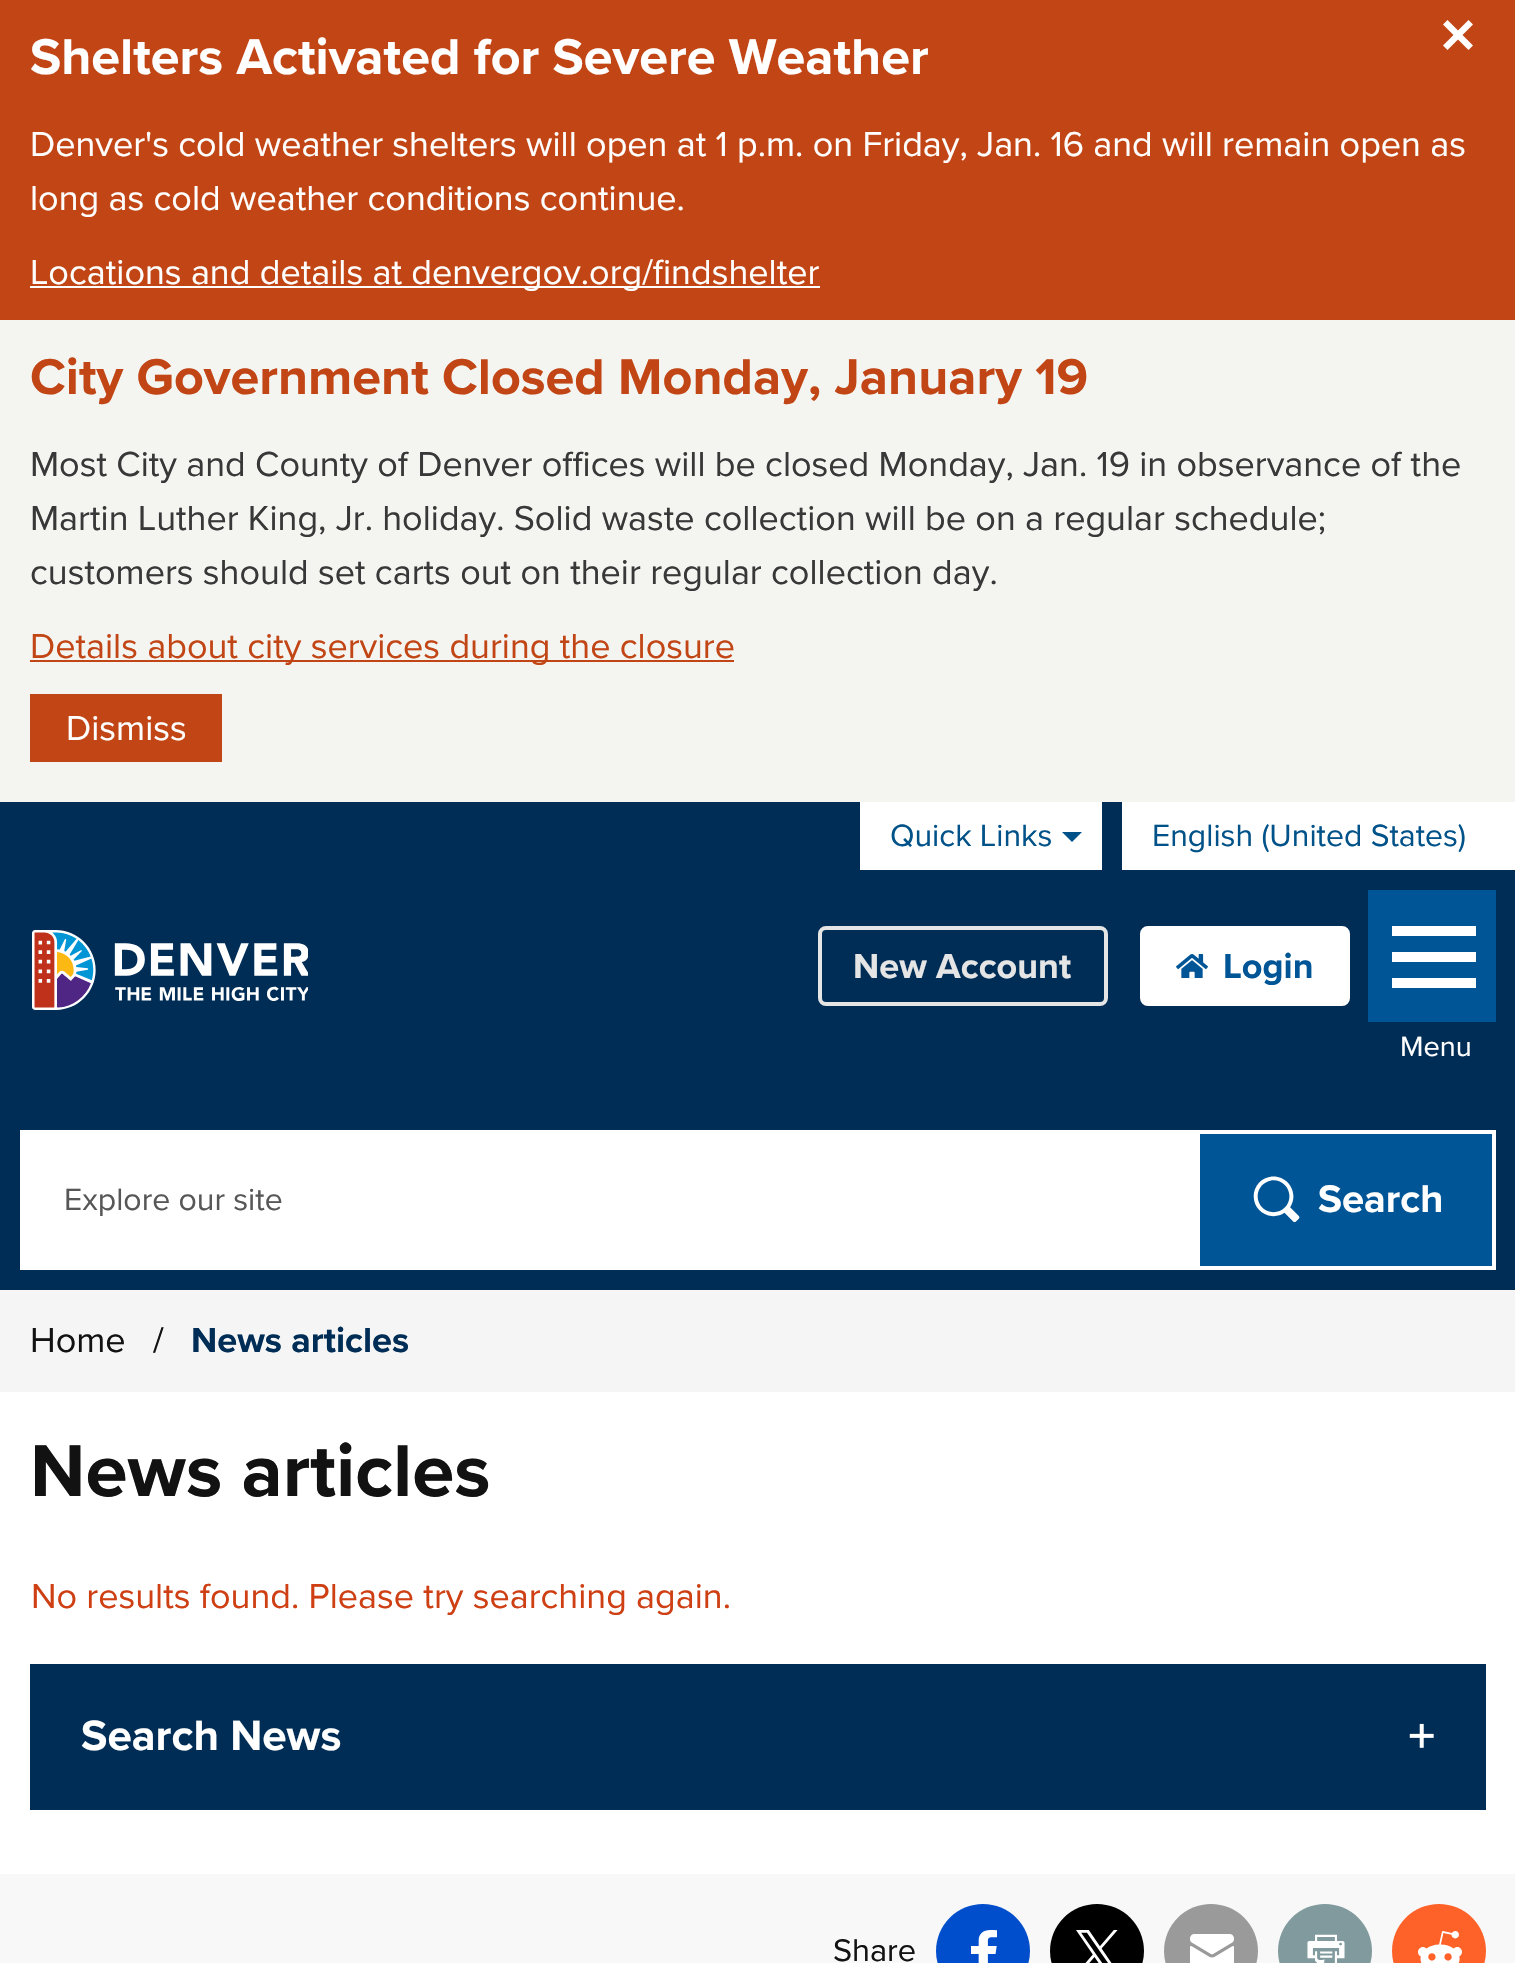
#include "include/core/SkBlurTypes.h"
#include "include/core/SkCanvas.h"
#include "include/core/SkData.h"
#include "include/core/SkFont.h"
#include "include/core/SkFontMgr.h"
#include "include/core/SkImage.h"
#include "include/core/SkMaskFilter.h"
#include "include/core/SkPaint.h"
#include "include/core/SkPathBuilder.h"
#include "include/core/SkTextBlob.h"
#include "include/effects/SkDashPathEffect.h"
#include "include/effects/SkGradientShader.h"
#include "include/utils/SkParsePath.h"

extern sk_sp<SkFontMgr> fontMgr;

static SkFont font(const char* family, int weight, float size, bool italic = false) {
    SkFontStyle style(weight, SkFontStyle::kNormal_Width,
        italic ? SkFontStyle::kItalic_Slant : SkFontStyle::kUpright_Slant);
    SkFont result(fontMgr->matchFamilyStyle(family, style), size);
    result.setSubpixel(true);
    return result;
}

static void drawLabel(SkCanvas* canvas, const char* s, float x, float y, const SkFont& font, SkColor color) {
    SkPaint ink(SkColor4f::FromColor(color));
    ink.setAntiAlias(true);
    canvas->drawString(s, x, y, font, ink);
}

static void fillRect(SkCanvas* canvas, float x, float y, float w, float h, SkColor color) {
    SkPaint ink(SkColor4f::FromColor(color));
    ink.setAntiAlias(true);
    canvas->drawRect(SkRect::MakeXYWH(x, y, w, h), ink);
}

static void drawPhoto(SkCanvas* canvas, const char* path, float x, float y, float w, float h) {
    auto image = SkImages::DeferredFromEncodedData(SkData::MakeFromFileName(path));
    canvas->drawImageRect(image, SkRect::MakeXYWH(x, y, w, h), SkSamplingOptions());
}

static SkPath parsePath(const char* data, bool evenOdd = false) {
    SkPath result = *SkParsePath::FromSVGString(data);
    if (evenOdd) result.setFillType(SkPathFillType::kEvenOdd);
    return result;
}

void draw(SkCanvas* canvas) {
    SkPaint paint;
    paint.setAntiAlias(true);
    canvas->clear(0xFFC24615);
    SkFont font1 = font("Proxima Nova", 700, 52);
    drawLabel(canvas, "Shelters Activated for Severe Weather", 30, 74, font1, 0xFFFFFFFF);
    paint.setColor(0xFFFFFFFF);
    canvas->drawPath(parsePath("M1447.5 20L1473 45.5L1468.5 50L1443 24.5Z"), paint);
    canvas->drawPath(parsePath("M1443 45.5L1468.5 20L1473 24.5L1447.5 50Z"), paint);
    SkFont font2 = font("Proxima Nova", 400, 36);
    drawLabel(canvas, "Denver's cold weather shelters will open at 1 p.m. on Friday, Jan. 16 and will remain open as", 30, 156, font2, 0xFFFFFFFF);
    drawLabel(canvas, "long as cold weather conditions continue.", 30, 210, font2, 0xFFFFFFFF);
    fillRect(canvas, 30, 286, 790, 2, 0xFFFFFFFF);
    drawLabel(canvas, "Locations and details at denvergov.org/findshelter", 30, 284, font2, 0xFFFFFFFF);
    fillRect(canvas, 0, 320, 1515, 482, 0xFFF4F4F1);
    drawLabel(canvas, "City Government Closed Monday, January 19", 30, 394, font1, 0xFFC24615);
    drawLabel(canvas, "Most City and County of Denver offices will be closed Monday, Jan. 19 in observance of the", 30, 476, font2, 0xFF383838);
    drawLabel(canvas, "Martin Luther King, Jr. holiday. Solid waste collection will be on a regular schedule;", 30, 530, font2, 0xFF383838);
    drawLabel(canvas, "customers should set carts out on their regular collection day.", 30, 584, font2, 0xFF383838);
    fillRect(canvas, 30, 660, 704, 2, 0xFFC24615);
    drawLabel(canvas, "Details about city services during the closure", 30, 658, font2, 0xFFC24615);
    fillRect(canvas, 30, 694, 192, 68, 0xFFC24615);
    drawLabel(canvas, "Dismiss", 66, 740, font2, 0xFFFFFFFF);
    fillRect(canvas, 0, 802, 1122, 68, 0xFF002D56);
    fillRect(canvas, 860, 802, 242, 68, 0xFFFFFFFF);
    SkFont font3 = font("Proxima Nova", 400, 32);
    drawLabel(canvas, "Quick Links", 890, 846, font3, 0xFF005288);
    paint.setColor(0xFF005288);
    canvas->drawPath(parsePath("M1062 832H1082L1072 842Z"), paint);
    fillRect(canvas, 1122, 802, 393, 68, 0xFFFFFFFF);
    drawLabel(canvas, "English (United States)", 1152, 846, font3, 0xFF005288);
    fillRect(canvas, 0, 870, 1515, 420, 0xFF002D56);
    drawPhoto(canvas, "assets/img1.png", 32, 930, 276, 80);
    paint.setStroke(true);
    paint.setStrokeWidth(4);
    paint.setColor(0xFFE5E5E5);
    canvas->drawRoundRect(SkRect::MakeXYWH(820, 928, 286, 76), 6, 6, paint);
    SkFont font4 = font("Proxima Nova", 700, 36);
    drawLabel(canvas, "New Account", 853, 978, font4, 0xFFE5E5E5);
    paint.setStroke(false);
    paint.setColor(0xFFFFFFFF);
    canvas->drawRoundRect(SkRect::MakeXYWH(1142, 928, 206, 76), 6, 6, paint);
    paint.setStroke(true);
    canvas->drawRoundRect(SkRect::MakeXYWH(1142, 928, 206, 76), 6, 6, paint);
    drawPhoto(canvas, "assets/img2.png", 1176, 954, 32, 24);
    drawLabel(canvas, "Login", 1223, 978, font4, 0xFF005596);
    fillRect(canvas, 1368, 890, 128, 132, 0xFF005596);
    fillRect(canvas, 1392, 952, 84, 10, 0xFFFFFFFF);
    fillRect(canvas, 1392, 926, 84, 10, 0xFFFFFFFF);
    fillRect(canvas, 1392, 978, 84, 10, 0xFFFFFFFF);
    SkFont font5 = font("Proxima Nova", 400, 29);
    drawLabel(canvas, "Menu", 1400, 1056, font5, 0xFFFFFFFF);
    fillRect(canvas, 20, 1130, 1176, 140, 0xFFFFFFFF);
    drawLabel(canvas, "Explore our site", 64, 1210, font3, 0xFF575757);
    fillRect(canvas, 1200, 1134, 292, 132, 0xFF005596);
    drawPhoto(canvas, "assets/img3.png", 1253, 1176, 47, 46);
    canvas->drawRect(SkRect::MakeXYWH(1198, 1132, 296, 136), paint);
    SkFont font6 = font("Proxima Nova", 700, 40);
    drawLabel(canvas, "Search", 1318, 1212, font6, 0xFFFFFFFF);
    fillRect(canvas, 0, 1290, 1515, 102, 0xFFF5F5F5);
    drawLabel(canvas, "Home", 30, 1352, font2, 0xFF121212);
    drawLabel(canvas, "/", 153, 1352, font2, 0xFF121212);
    drawLabel(canvas, "News articles", 191, 1352, font4, 0xFF002D56);
    fillRect(canvas, 0, 1392, 1515, 482, 0xFFFFFFFF);
    SkFont font7 = font("Proxima Nova", 700, 76);
    drawLabel(canvas, "News articles", 30, 1496, font7, 0xFF121212);
    drawLabel(canvas, "No results found. Please try searching again.", 31, 1608, font2, 0xFFCE3F13);
    fillRect(canvas, 30, 1664, 1456, 146, 0xFF002D56);
    SkFont font8 = font("Proxima Nova", 700, 44);
    drawLabel(canvas, "Search News", 81, 1750, font8, 0xFFFFFFFF);
    drawPhoto(canvas, "assets/img4.png", 1409, 1723, 25, 25);
    fillRect(canvas, 0, 1874, 1515, 89, 0xFFF8F8F8);
    SkFont font9 = font("Proxima Nova", 400, 32.5f);
    drawLabel(canvas, "Share", 833, 1961, font9, 0xFF121212);
    paint.setStroke(false);
    paint.setColor(0xFF004ECC);
    canvas->drawCircle(983, 1951, 47, paint);
    drawPhoto(canvas, "assets/img5.png", 971, 1930, 26, 33);
    paint.setColor(0xFF000000);
    canvas->drawCircle(1097, 1951, 47, paint);
    drawPhoto(canvas, "assets/img6.png", 1076, 1930, 42, 33);
    paint.setColor(0xFF9B9A9A);
    canvas->drawCircle(1211, 1951, 47, paint);
    drawPhoto(canvas, "assets/img7.png", 1190, 1934, 44, 29);
    paint.setColor(0xFF809A9D);
    canvas->drawCircle(1325, 1951, 47, paint);
    drawPhoto(canvas, "assets/img8.png", 1307, 1934, 38, 29);
    paint.setColor(0xFFFF6229);
    canvas->drawCircle(1439, 1951, 47, paint);
    drawPhoto(canvas, "assets/img9.png", 1418, 1931, 44, 32);
}
